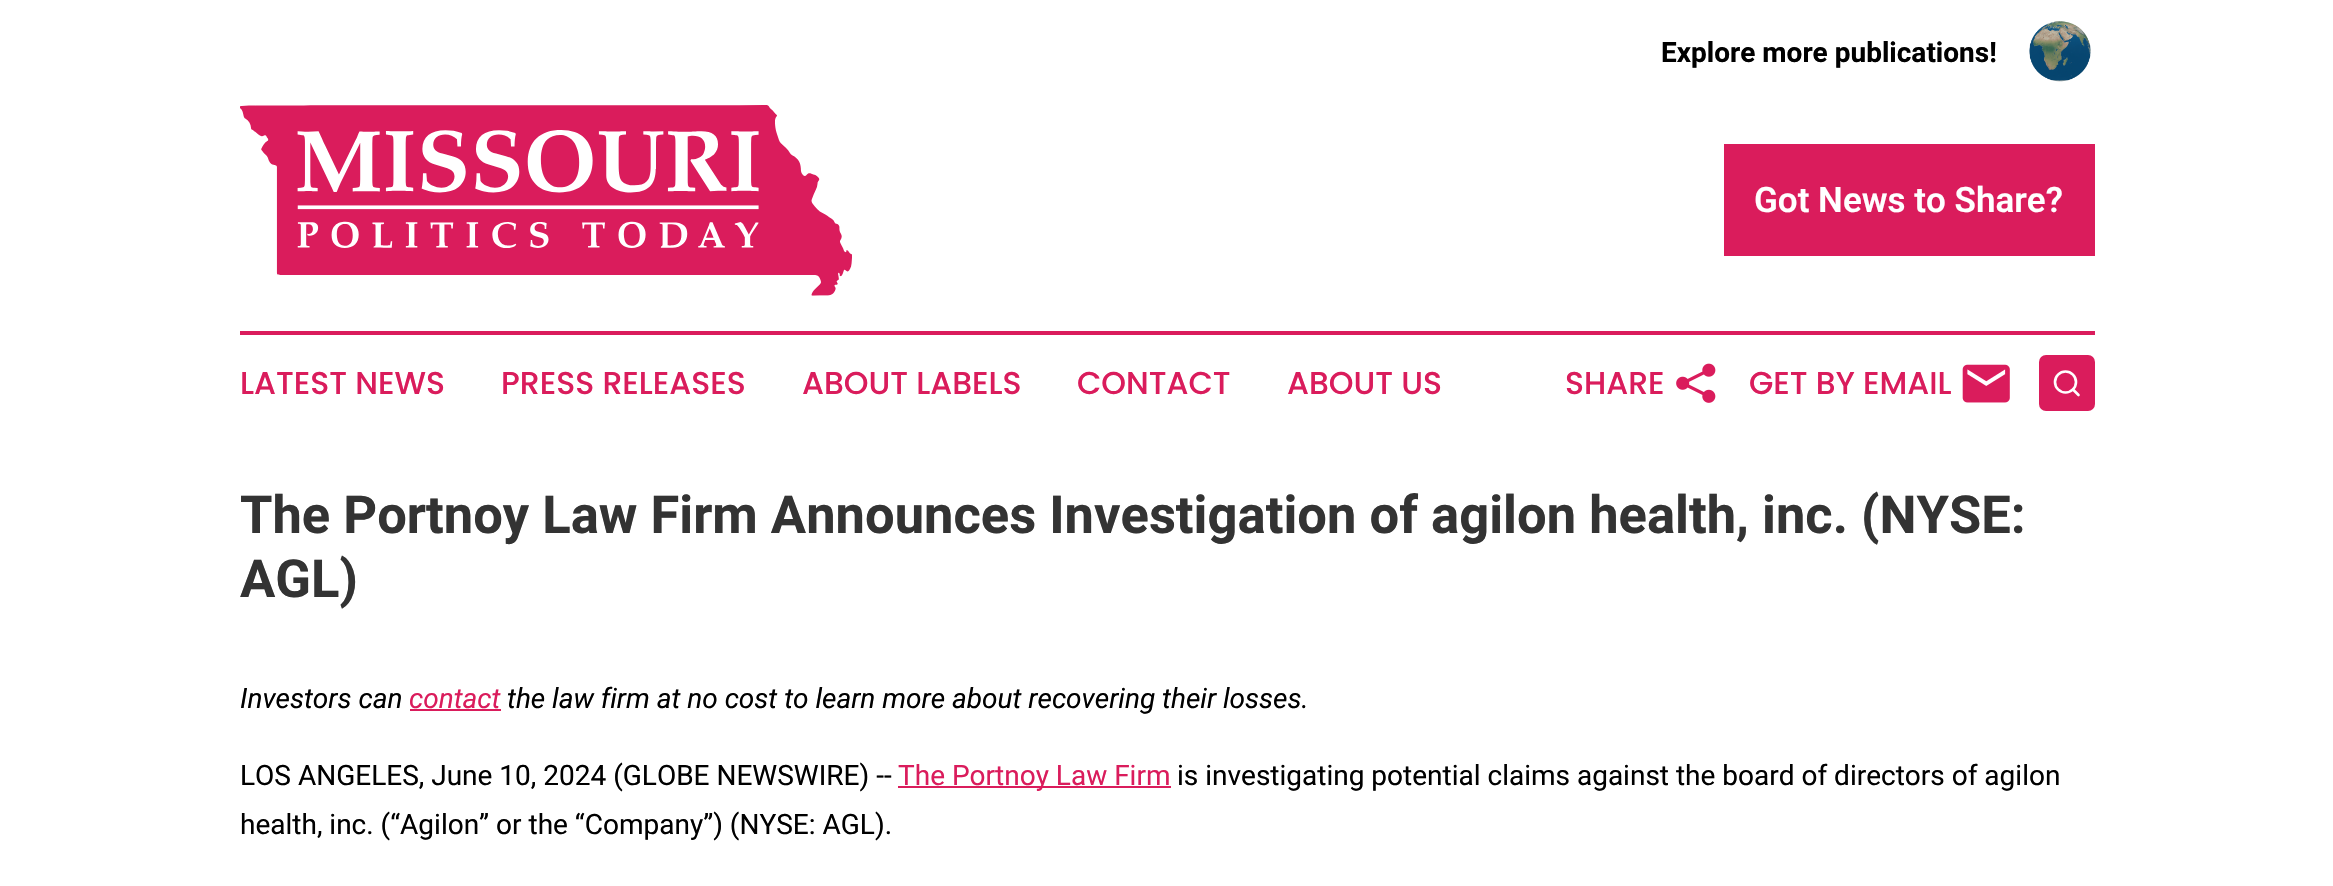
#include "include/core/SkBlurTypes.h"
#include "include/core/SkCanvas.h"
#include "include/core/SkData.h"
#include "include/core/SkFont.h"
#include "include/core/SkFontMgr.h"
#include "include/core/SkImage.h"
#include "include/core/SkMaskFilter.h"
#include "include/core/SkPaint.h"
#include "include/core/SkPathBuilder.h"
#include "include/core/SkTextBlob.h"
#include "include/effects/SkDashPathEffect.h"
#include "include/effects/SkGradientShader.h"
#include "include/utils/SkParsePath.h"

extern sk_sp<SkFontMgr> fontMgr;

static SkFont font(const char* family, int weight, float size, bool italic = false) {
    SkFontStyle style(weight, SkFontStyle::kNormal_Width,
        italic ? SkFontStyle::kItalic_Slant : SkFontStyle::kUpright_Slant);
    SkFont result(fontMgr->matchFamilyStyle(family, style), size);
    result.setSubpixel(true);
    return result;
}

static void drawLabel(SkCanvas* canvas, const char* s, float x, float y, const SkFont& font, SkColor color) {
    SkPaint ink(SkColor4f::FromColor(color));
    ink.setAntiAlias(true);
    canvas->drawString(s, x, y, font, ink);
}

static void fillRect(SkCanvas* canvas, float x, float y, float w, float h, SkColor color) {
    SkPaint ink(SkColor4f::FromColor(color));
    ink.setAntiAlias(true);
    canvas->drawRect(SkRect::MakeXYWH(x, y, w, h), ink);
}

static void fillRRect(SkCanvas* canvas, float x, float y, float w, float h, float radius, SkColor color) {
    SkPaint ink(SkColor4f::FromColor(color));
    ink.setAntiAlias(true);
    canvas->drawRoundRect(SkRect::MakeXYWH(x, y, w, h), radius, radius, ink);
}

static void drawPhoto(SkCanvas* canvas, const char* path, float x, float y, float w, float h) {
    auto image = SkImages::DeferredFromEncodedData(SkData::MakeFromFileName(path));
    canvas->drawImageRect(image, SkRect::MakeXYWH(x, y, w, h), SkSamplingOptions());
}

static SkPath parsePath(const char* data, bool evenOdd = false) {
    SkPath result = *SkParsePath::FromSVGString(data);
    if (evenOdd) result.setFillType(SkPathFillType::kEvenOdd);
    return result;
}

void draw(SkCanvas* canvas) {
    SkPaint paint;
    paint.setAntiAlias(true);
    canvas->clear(0xFFFFFFFF);
    SkFont font1 = font("Roboto", 700, 28);
    drawLabel(canvas, "Explore more publications!", 1661, 62, font1, 0xFF000000);
    drawPhoto(canvas, "assets/img1.png", 2029, 21, 62, 61);
    drawPhoto(canvas, "assets/img2.png", 240, 105, 612, 191);
    fillRect(canvas, 1724, 144, 371, 112, 0xFFDA1C5C);
    SkFont font2 = font("Roboto", 600, 35);
    drawLabel(canvas, "Got News to Share?", 1754, 212, font2, 0xFFFFFFFF);
    fillRect(canvas, 240, 331, 1855, 4, 0xFFDA1C5C);
    SkFont font3 = font("Poppins", 500, 31.5f);
    drawLabel(canvas, "LATEST NEWS", 240, 394, font3, 0xFFDA1C5C);
    drawLabel(canvas, "PRESS RELEASES", 501, 394, font3, 0xFFDA1C5C);
    drawLabel(canvas, "ABOUT LABELS", 802, 394, font3, 0xFFDA1C5C);
    drawLabel(canvas, "CONTACT", 1077, 394, font3, 0xFFDA1C5C);
    drawLabel(canvas, "ABOUT US", 1287, 394, font3, 0xFFDA1C5C);
    drawLabel(canvas, "SHARE", 1565, 394, font3, 0xFFDA1C5C);
    drawPhoto(canvas, "assets/img3.png", 1676, 363, 40, 40);
    drawLabel(canvas, "GET BY EMAIL", 1749, 394, font3, 0xFFDA1C5C);
    drawPhoto(canvas, "assets/img4.png", 1962, 364, 48, 39);
    fillRRect(canvas, 2039, 355, 56, 56, 7, 0xFFDA1C5C);
    paint.setStroke(true);
    paint.setStrokeWidth(2.6f);
    paint.setColor(0xFFFFFFFF);
    canvas->drawCircle(2065.5f, 382, 10.5f, paint);
    paint.setStrokeCap(SkPaint::kRound_Cap);
    paint.setStrokeJoin(SkPaint::kRound_Join);
    canvas->drawPath(parsePath("M2078.5 395L2073 389.5"), paint);
    SkFont font4 = font("Roboto", 700, 52.5f);
    drawLabel(canvas, "The Portnoy Law Firm Announces Investigation of agilon health, inc. (NYSE:", 240, 533, font4, 0xFF333333);
    drawLabel(canvas, "AGL)", 240, 597, font4, 0xFF333333);
    SkFont font5 = font("Roboto", 400, 28, true);
    drawLabel(canvas, "Investors can", 240, 708, font5, 0xFF000000);
    drawLabel(canvas, "contact", 409, 708, font5, 0xFFDA1C5C);
    fillRect(canvas, 410, 709, 91, 2, 0xFFDA1C5C);
    drawLabel(canvas, "the law firm at no cost to learn more about recovering their losses.", 507, 708, font5, 0xFF000000);
    SkFont font6 = font("Roboto", 400, 28);
    drawLabel(canvas, "LOS ANGELES, June 10, 2024 (GLOBE NEWSWIRE) --", 240, 785, font6, 0xFF000000);
    fillRect(canvas, 898, 786, 273, 2, 0xFFDA1C5C);
    drawLabel(canvas, "The Portnoy Law Firm", 898, 785, font6, 0xFFDA1C5C);
    drawLabel(canvas, "is investigating potential claims against the board of directors of agilon", 1177, 785, font6, 0xFF000000);
    drawLabel(canvas, "health, inc. (“Agilon” or the “Company”) (NYSE: AGL).", 240, 834, font6, 0xFF000000);
}
